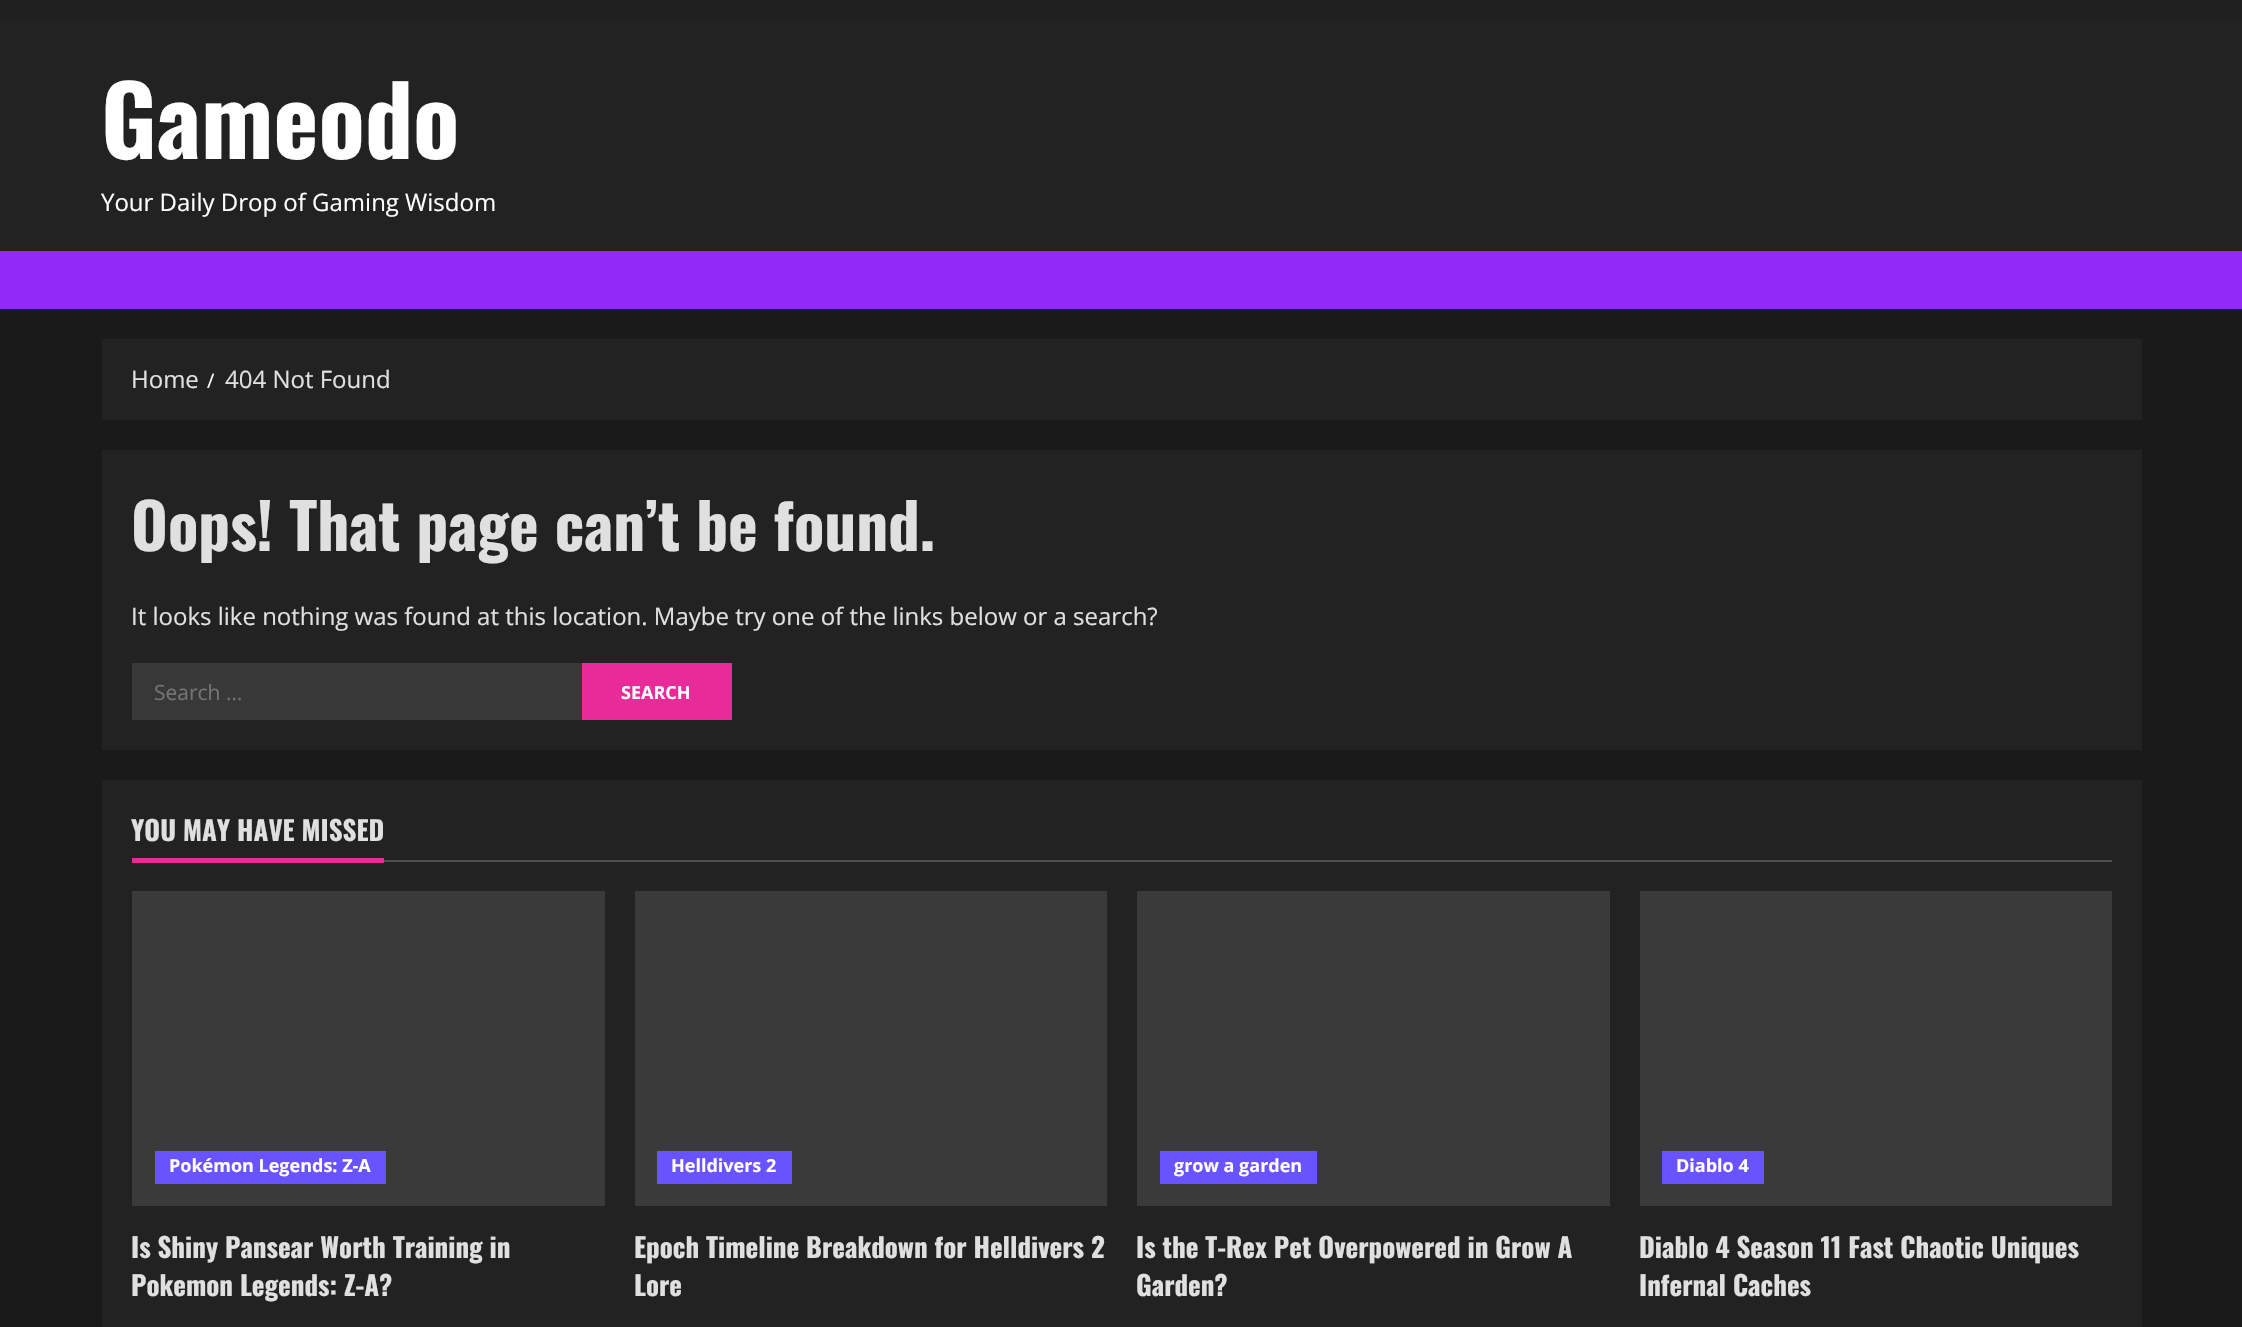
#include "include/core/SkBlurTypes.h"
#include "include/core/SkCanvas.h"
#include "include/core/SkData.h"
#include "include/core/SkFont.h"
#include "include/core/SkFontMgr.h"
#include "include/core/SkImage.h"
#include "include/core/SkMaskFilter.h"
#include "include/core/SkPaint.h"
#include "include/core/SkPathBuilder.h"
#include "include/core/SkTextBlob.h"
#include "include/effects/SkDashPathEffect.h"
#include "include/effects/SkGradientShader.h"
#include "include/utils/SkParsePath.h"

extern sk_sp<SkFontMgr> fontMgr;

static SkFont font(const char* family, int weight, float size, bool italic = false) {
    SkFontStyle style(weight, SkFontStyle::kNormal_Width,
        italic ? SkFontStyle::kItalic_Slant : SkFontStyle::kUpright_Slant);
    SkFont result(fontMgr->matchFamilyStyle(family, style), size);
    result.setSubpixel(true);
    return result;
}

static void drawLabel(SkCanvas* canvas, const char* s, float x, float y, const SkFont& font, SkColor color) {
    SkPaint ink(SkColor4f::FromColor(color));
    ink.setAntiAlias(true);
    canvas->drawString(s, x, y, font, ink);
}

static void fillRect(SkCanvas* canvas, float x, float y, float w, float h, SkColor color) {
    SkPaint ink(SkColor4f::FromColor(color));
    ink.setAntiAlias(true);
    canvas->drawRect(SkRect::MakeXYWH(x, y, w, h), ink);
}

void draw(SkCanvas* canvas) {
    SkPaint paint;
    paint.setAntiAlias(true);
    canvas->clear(0xFF1A1A1A);
    fillRect(canvas, 0, 0, 2242, 20, 0xFF202020);
    fillRect(canvas, 0, 20, 2242, 231, 0xFF222222);
    SkFont font1 = font("Oswald", 700, 96);
    drawLabel(canvas, "Gameodo", 101, 159, font1, 0xFFFFFFFF);
    SkFont font2 = font("Open Sans", 400, 24);
    drawLabel(canvas, "Your Daily Drop of Gaming Wisdom", 101, 211, font2, 0xFFFFFFFF);
    fillRect(canvas, 0, 251, 2242, 58, 0xFF9229F7);
    fillRect(canvas, 102, 339, 2040, 81, 0xFF222222);
    drawLabel(canvas, "Home", 131, 388, font2, 0xFFE0E0E0);
    SkFont font3 = font("Open Sans", 400, 20);
    drawLabel(canvas, "/", 207, 388, font3, 0xFFFFFFFF);
    drawLabel(canvas, "404 Not Found", 225, 388, font2, 0xFFE0E0E0);
    fillRect(canvas, 102, 450, 2040, 300, 0xFF222222);
    SkFont font4 = font("Oswald", 700, 63);
    drawLabel(canvas, "Oops! That page can’t be found.", 131, 551, font4, 0xFFE0E0E0);
    drawLabel(canvas, "It looks like nothing was found at this location. Maybe try one of the links below or a search?", 131, 625, font2, 0xFFE0E0E0);
    fillRect(canvas, 132, 663, 450, 57, 0xFF383838);
    SkFont font5 = font("Open Sans", 400, 21);
    drawLabel(canvas, "Search …", 154, 700, font5, 0xFF757575);
    fillRect(canvas, 582, 663, 150, 57, 0xFFE72B99);
    SkFont font6 = font("Open Sans", 700, 18);
    drawLabel(canvas, "SEARCH", 621, 699, font6, 0xFFFFFFFF);
    fillRect(canvas, 102, 780, 2040, 547, 0xFF222222);
    fillRect(canvas, 384, 860, 1728, 2, 0xFF4E4E4E);
    SkFont font7 = font("Oswald", 700, 27);
    drawLabel(canvas, "YOU MAY HAVE MISSED", 131, 841, font7, 0xFFE0E0E0);
    fillRect(canvas, 132, 858, 252, 5, 0xFFE72B99);
    fillRect(canvas, 132, 891, 473, 315, 0xFF3A3A3A);
    fillRect(canvas, 155, 1151, 231, 33, 0xFF6953FF);
    drawLabel(canvas, "Pokémon Legends: Z-A", 169, 1172, font6, 0xFFFFFFFF);
    drawLabel(canvas, "Is Shiny Pansear Worth Training in", 131, 1258, font7, 0xFFE0E0E0);
    drawLabel(canvas, "Pokemon Legends: Z-A?", 131, 1296, font7, 0xFFE0E0E0);
    fillRect(canvas, 635, 891, 472, 315, 0xFF3A3A3A);
    fillRect(canvas, 657, 1151, 135, 33, 0xFF6953FF);
    drawLabel(canvas, "Helldivers 2", 671, 1172, font6, 0xFFFFFFFF);
    drawLabel(canvas, "Epoch Timeline Breakdown for Helldivers 2", 634, 1258, font7, 0xFFE0E0E0);
    drawLabel(canvas, "Lore", 634, 1296, font7, 0xFFE0E0E0);
    fillRect(canvas, 1137, 891, 473, 315, 0xFF3A3A3A);
    fillRect(canvas, 1160, 1151, 157, 33, 0xFF6953FF);
    drawLabel(canvas, "grow a garden", 1174, 1172, font6, 0xFFFFFFFF);
    drawLabel(canvas, "Is the T-Rex Pet Overpowered in Grow A", 1136, 1258, font7, 0xFFE0E0E0);
    drawLabel(canvas, "Garden?", 1136, 1296, font7, 0xFFE0E0E0);
    fillRect(canvas, 1640, 891, 472, 315, 0xFF3A3A3A);
    fillRect(canvas, 1662, 1151, 102, 33, 0xFF6953FF);
    drawLabel(canvas, "Diablo 4", 1676, 1172, font6, 0xFFFFFFFF);
    drawLabel(canvas, "Diablo 4 Season 11 Fast Chaotic Uniques", 1639, 1258, font7, 0xFFE0E0E0);
    drawLabel(canvas, "Infernal Caches", 1639, 1296, font7, 0xFFE0E0E0);
}
